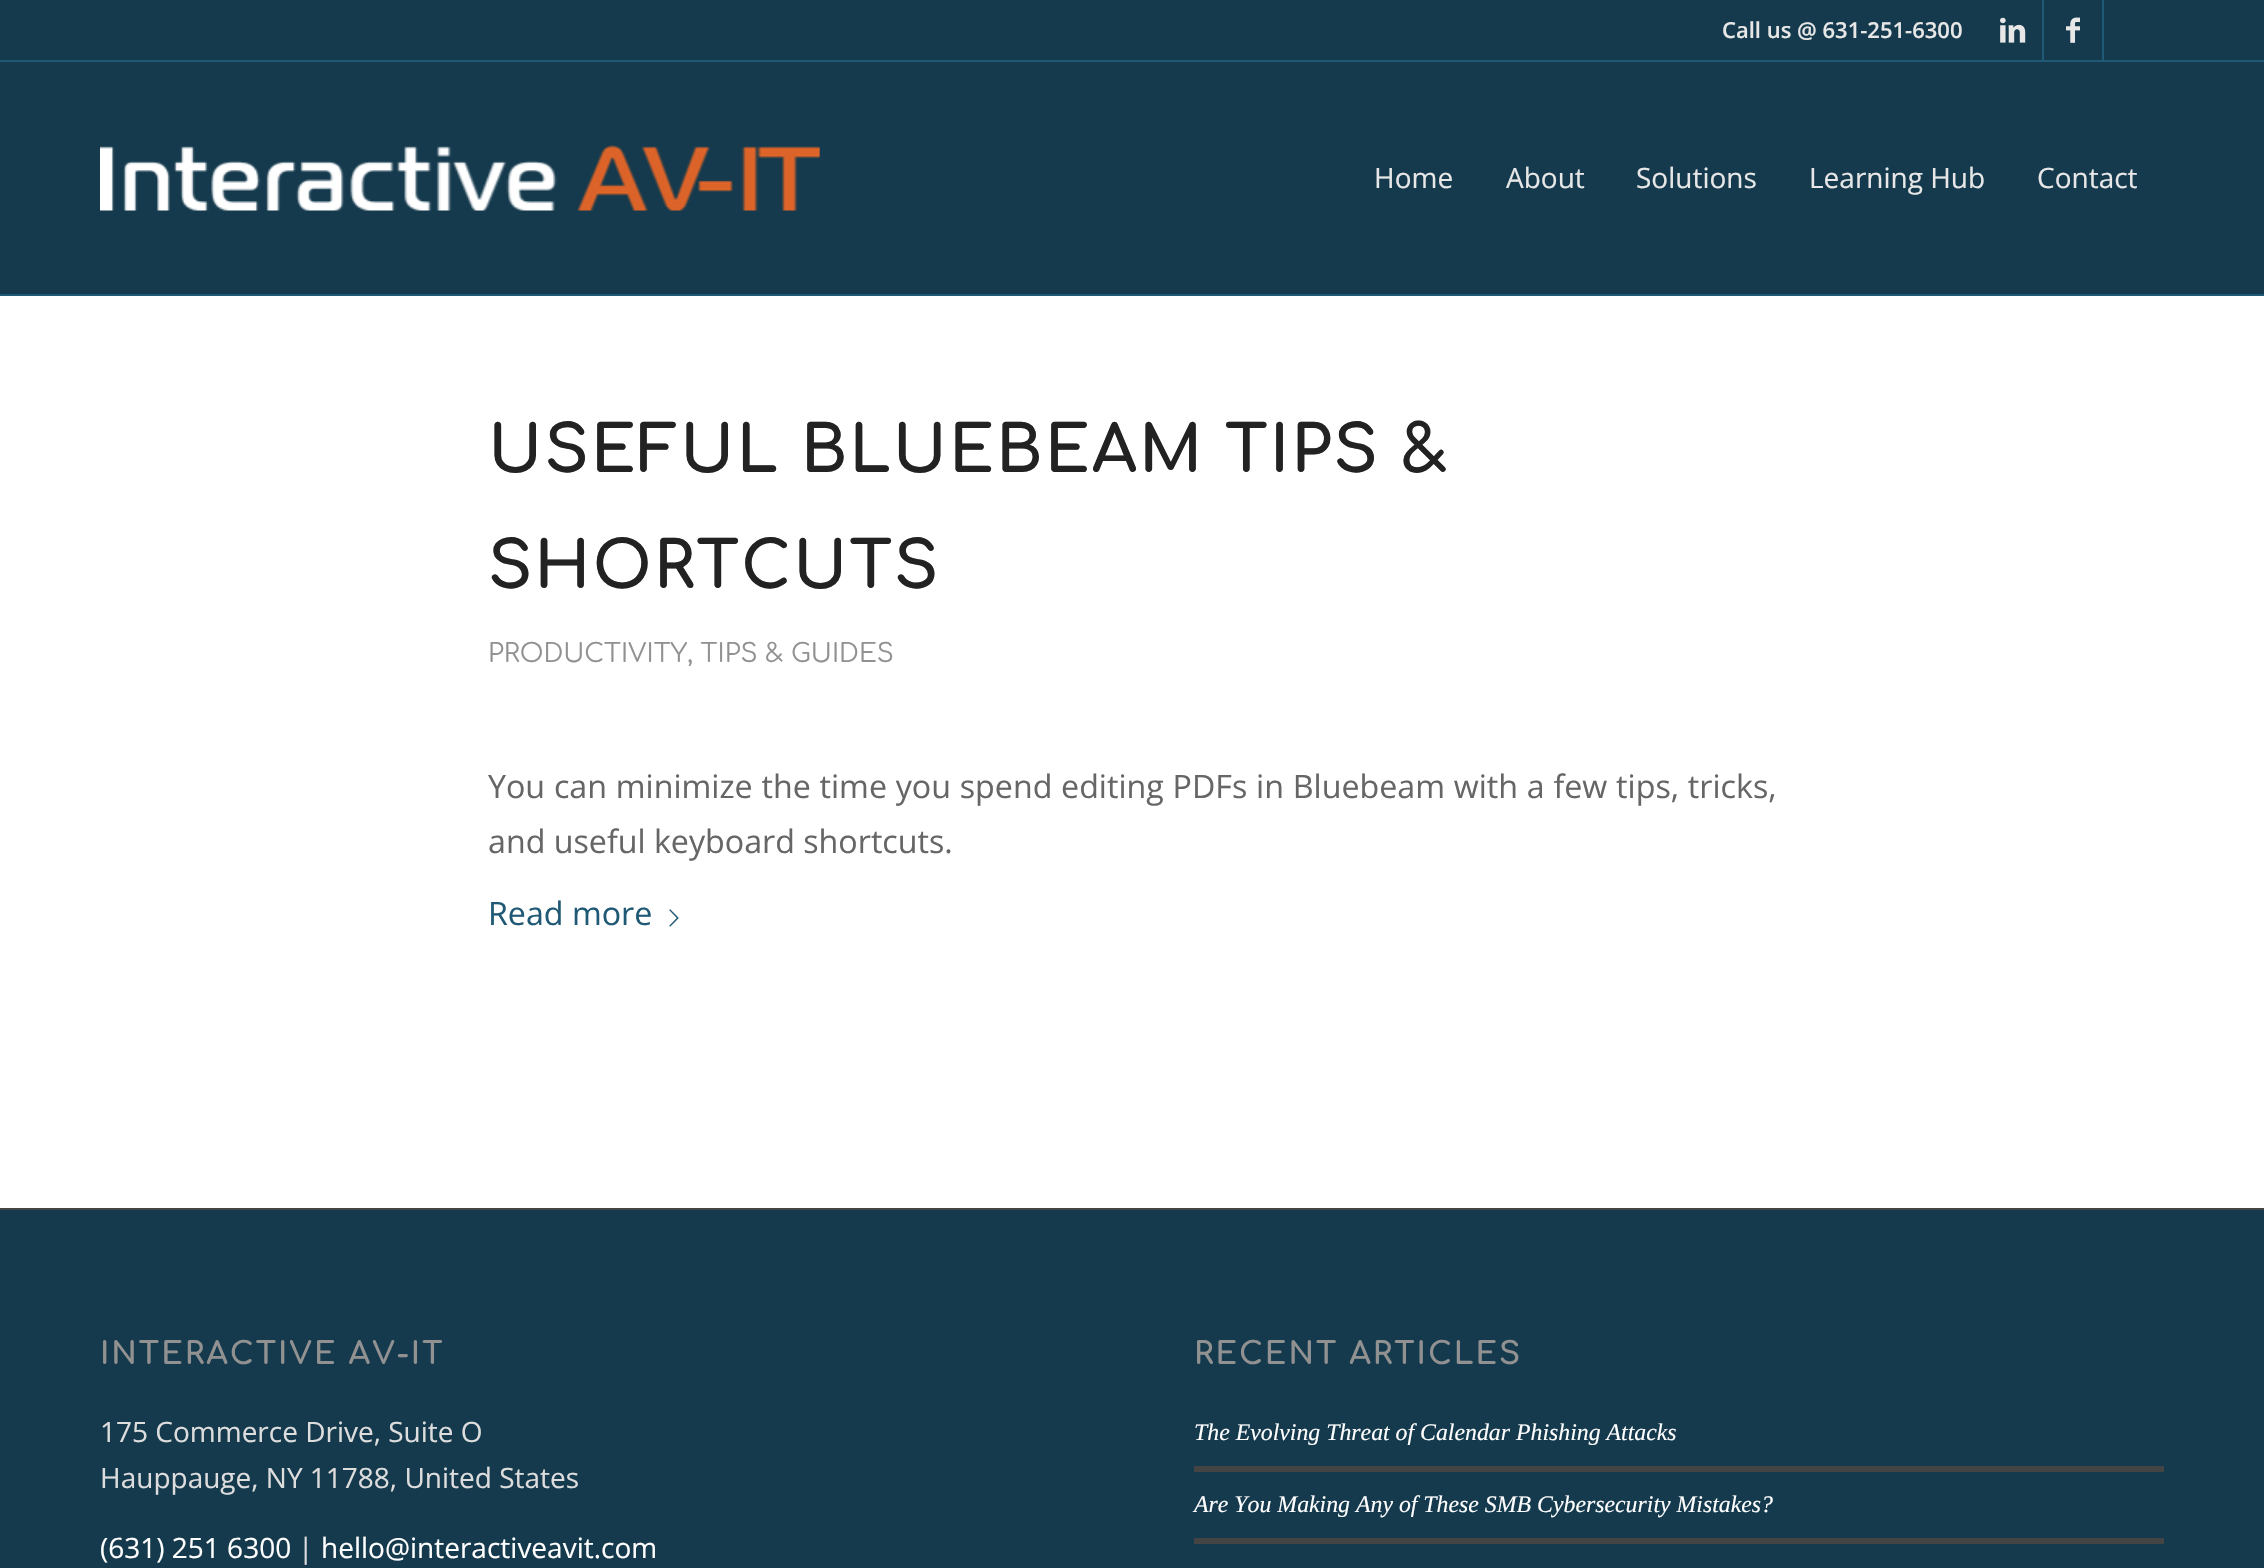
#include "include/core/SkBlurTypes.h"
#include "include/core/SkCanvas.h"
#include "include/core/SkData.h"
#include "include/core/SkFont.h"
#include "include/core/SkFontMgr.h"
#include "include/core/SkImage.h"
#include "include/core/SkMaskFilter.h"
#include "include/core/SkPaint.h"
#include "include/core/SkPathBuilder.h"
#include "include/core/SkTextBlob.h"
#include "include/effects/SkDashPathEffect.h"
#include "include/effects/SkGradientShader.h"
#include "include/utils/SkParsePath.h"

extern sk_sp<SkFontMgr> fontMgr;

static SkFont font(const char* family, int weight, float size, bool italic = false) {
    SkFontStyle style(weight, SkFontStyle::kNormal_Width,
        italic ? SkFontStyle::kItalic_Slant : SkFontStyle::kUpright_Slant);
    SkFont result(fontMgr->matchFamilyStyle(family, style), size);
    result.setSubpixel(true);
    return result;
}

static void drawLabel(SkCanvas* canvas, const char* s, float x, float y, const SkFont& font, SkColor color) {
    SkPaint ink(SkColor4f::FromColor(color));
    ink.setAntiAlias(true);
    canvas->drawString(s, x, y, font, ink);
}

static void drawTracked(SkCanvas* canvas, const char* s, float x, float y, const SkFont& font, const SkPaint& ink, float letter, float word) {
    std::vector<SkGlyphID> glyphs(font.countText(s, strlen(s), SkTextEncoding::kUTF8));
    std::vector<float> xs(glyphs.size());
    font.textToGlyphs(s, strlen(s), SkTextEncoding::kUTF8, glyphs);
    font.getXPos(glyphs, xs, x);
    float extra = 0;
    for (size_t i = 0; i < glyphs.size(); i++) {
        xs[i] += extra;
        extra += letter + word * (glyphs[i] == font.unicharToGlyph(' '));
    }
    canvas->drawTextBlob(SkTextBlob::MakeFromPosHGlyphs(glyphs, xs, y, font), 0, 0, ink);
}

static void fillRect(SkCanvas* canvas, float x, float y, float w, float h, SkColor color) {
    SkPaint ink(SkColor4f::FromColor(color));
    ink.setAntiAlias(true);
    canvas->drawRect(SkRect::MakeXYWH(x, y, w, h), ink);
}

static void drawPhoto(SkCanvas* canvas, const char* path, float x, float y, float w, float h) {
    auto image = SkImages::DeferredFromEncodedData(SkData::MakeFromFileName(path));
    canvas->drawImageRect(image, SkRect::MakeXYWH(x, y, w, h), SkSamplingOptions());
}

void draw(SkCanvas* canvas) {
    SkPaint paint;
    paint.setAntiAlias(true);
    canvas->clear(0xFF153A4D);
    fillRect(canvas, 0, 60, 2264, 2, 0xFF205975);
    SkFont font1 = font("Open Sans", 600, 22);
    drawLabel(canvas, "Call us @ 631-251-6300", 1722, 38, font1, 0xFFE7E7E7);
    fillRect(canvas, 2042, 0, 2, 60, 0xFF205975);
    drawPhoto(canvas, "assets/img1.png", 2000, 17, 26, 26);
    fillRect(canvas, 2102, 0, 2, 60, 0xFF205975);
    drawPhoto(canvas, "assets/img2.png", 2066, 17, 14, 26);
    fillRect(canvas, 0, 294, 2264, 2, 0xFF205975);
    drawPhoto(canvas, "assets/img3.png", 100, 145, 720, 66);
    SkFont font2 = font("Open Sans", 400, 28);
    drawLabel(canvas, "Home", 1374, 188, font2, 0xFFE7E7E7);
    drawLabel(canvas, "About", 1506, 188, font2, 0xFFE7E7E7);
    drawLabel(canvas, "Solutions", 1636, 188, font2, 0xFFE7E7E7);
    drawLabel(canvas, "Learning Hub", 1809, 188, font2, 0xFFE7E7E7);
    drawLabel(canvas, "Contact", 2037, 188, font2, 0xFFE7E7E7);
    fillRect(canvas, 0, 296, 2264, 912, 0xFFFFFFFF);
    SkFont font3 = font("Comfortaa", 700, 64.4f);
    paint.setColor(0xFF222222);
    drawTracked(canvas, "USEFUL BLUEBEAM TIPS &", 488, 472, font3, paint, 2, 0);
    drawTracked(canvas, "SHORTCUTS", 488, 588, font3, paint, 2, 0);
    SkFont font4 = font("Comfortaa", 400, 25.75f);
    drawLabel(canvas, "PRODUCTIVITY, TIPS & GUIDES", 488, 662, font4, 0xFF919191);
    SkFont font5 = font("Open Sans", 400, 32.2f);
    paint.setColor(0xFF666666);
    drawTracked(canvas, "You can minimize the time you spend editing PDFs in Bluebeam with a few tips, tricks,", 488, 798, font5, paint, 0, 0.4f);
    drawLabel(canvas, "and useful keyboard shortcuts.", 488, 853, font5, 0xFF666666);
    drawLabel(canvas, "Read more", 488, 925, font5, 0xFF205975);
    drawPhoto(canvas, "assets/img4.png", 669, 909, 10, 18);
    fillRect(canvas, 0, 1208, 2264, 2, 0xFF444444);
    SkFont font6 = font("Comfortaa", 700, 30.75f);
    paint.setColor(0xFF919191);
    drawTracked(canvas, "INTERACTIVE AV-IT", 100, 1364, font6, paint, 2, 0);
    drawLabel(canvas, "175 Commerce Drive, Suite O", 100, 1442, font2, 0xFFDDDDDD);
    drawLabel(canvas, "Hauppauge, NY 11788, United States", 100, 1488, font2, 0xFFDDDDDD);
    drawLabel(canvas, "(631) 251 6300", 100, 1558, font2, 0xFFFFFFFF);
    drawLabel(canvas, "|", 298, 1558, font2, 0xFFDDDDDD);
    drawLabel(canvas, "hello@interactiveavit.com", 321, 1558, font2, 0xFFFFFFFF);
    drawTracked(canvas, "RECENT ARTICLES", 1194, 1364, font6, paint, 2, 0);
    SkFont font7 = font("Liberation Serif", 400, 23.8f, true);
    drawLabel(canvas, "The Evolving Threat of Calendar Phishing Attacks", 1194, 1440, font7, 0xFFFFFFFF);
    fillRect(canvas, 1194, 1466, 970, 6, 0xFF444444);
    drawLabel(canvas, "Are You Making Any of These SMB Cybersecurity Mistakes?", 1194, 1512, font7, 0xFFFFFFFF);
    fillRect(canvas, 1194, 1538, 970, 6, 0xFF444444);
}
